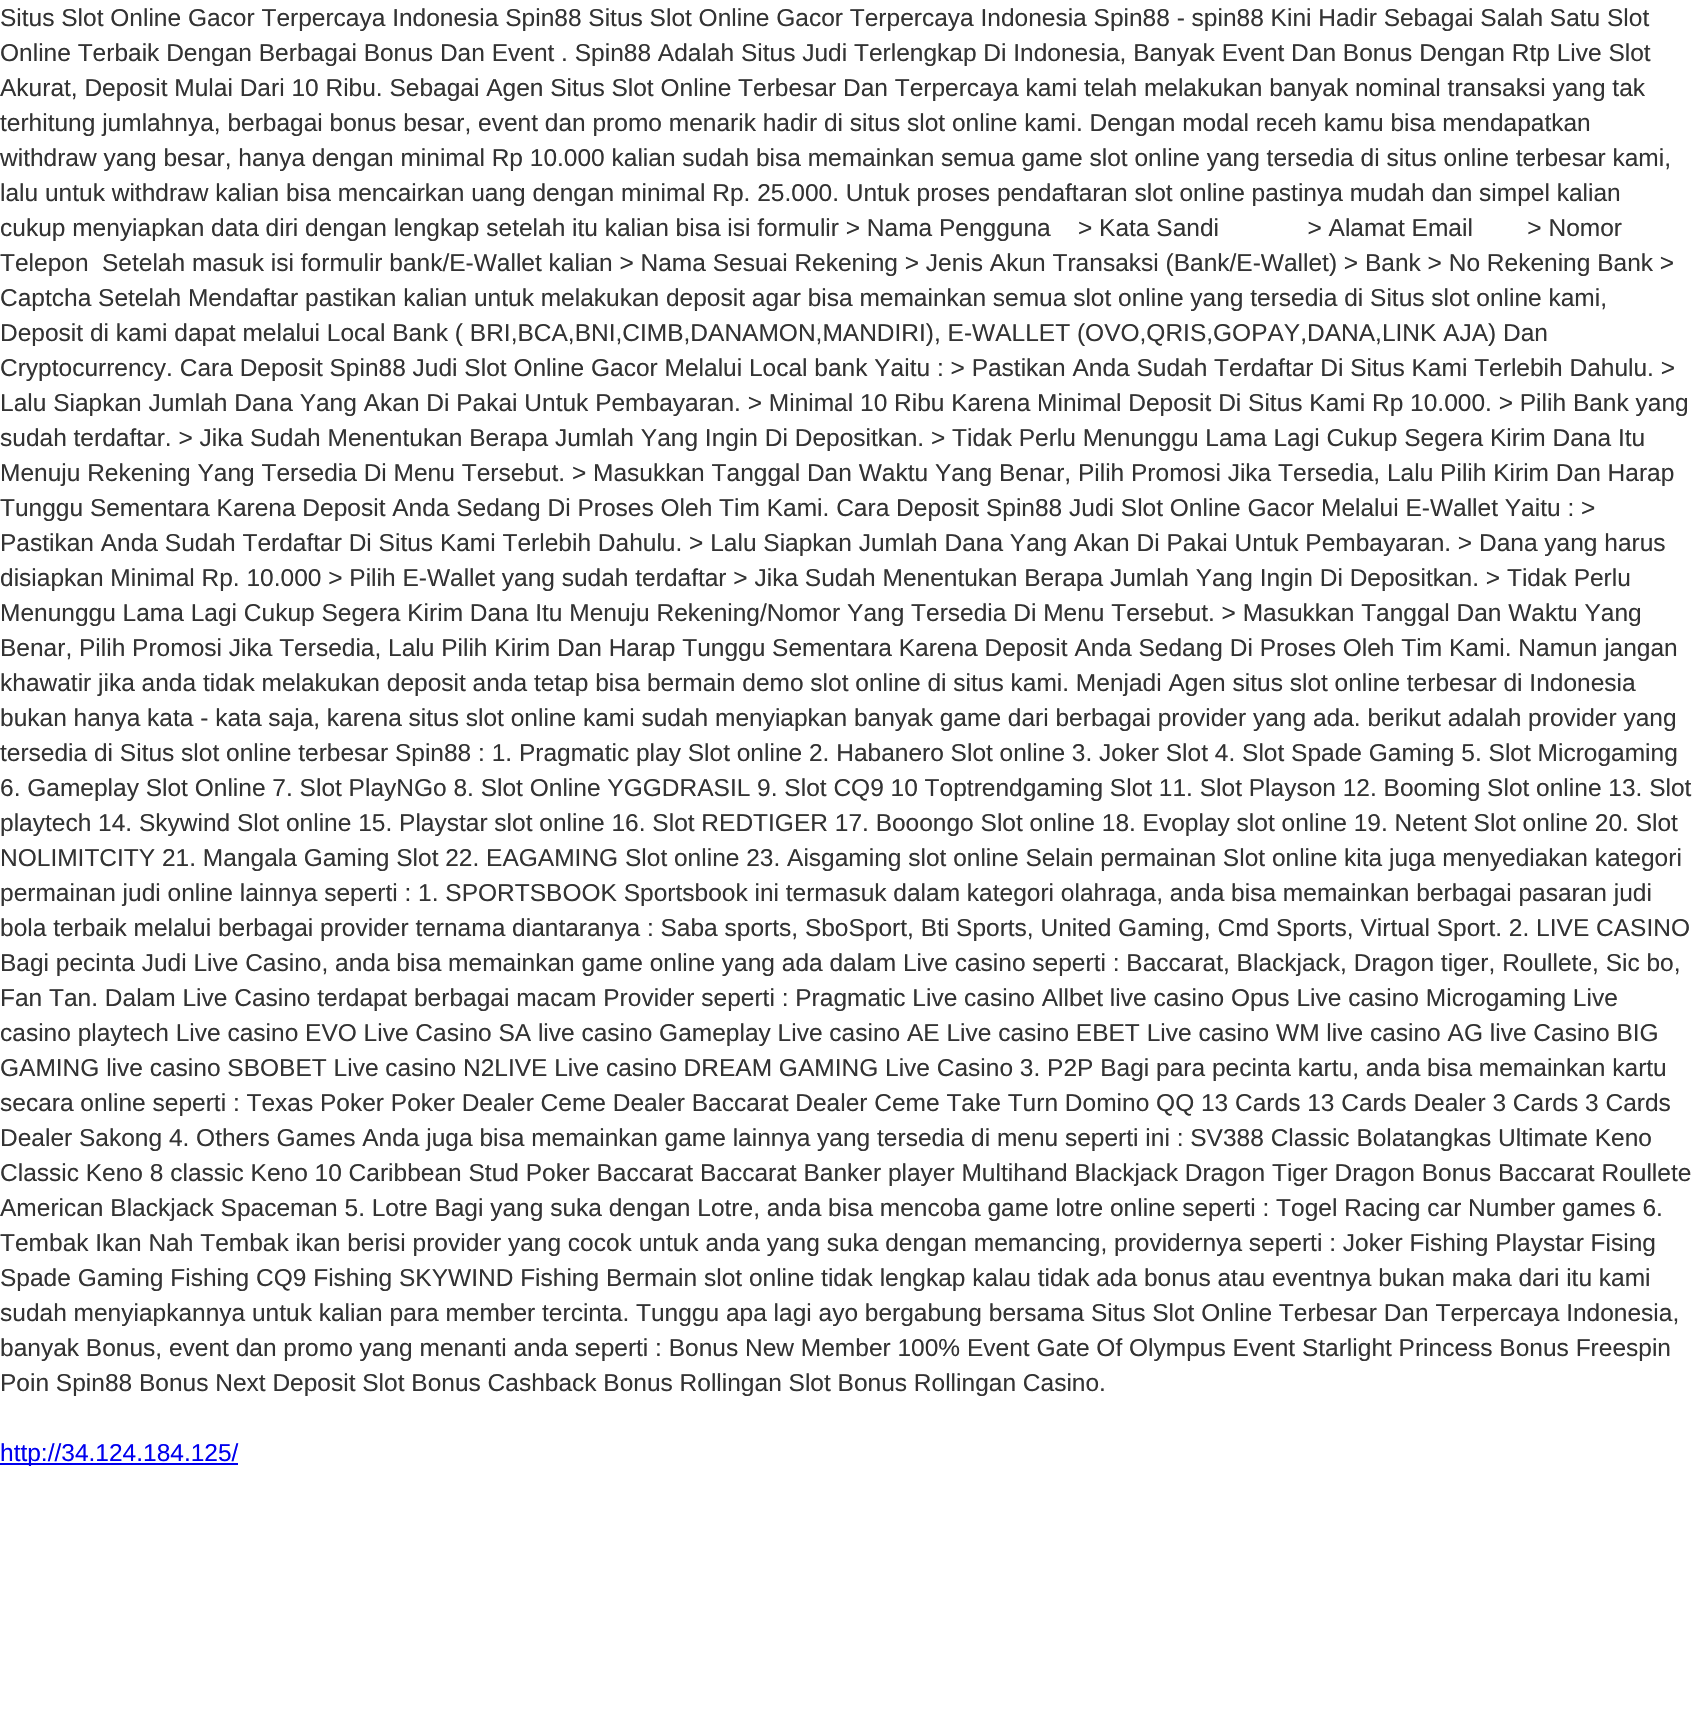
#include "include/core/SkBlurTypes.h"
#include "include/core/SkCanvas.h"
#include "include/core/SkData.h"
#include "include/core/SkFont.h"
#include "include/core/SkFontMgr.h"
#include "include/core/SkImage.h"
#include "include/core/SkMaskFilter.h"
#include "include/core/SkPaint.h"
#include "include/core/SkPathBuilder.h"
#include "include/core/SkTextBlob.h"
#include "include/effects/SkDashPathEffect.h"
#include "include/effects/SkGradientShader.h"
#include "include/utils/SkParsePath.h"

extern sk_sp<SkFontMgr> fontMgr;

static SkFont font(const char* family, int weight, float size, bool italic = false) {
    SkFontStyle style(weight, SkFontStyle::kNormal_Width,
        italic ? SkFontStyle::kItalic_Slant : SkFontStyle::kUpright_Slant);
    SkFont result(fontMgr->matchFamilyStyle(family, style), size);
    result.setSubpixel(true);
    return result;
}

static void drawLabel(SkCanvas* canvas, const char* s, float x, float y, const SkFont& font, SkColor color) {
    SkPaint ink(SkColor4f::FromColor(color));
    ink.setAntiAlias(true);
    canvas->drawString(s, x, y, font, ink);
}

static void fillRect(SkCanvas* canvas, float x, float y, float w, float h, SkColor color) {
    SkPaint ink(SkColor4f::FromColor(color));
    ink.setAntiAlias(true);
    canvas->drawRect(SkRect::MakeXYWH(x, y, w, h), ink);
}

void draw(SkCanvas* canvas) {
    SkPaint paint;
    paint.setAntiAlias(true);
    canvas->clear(0xFFFFFFFF);
    SkFont font1 = font("Liberation Sans", 400, 24.5f);
    drawLabel(canvas, "Situs Slot Online Gacor Terpercaya Indonesia Spin88 Situs Slot Online Gacor Terpercaya Indonesia Spin88 - spin88 Kini Hadir Sebagai Salah Satu Slot", 0, 26, font1, 0xFF333333);
    drawLabel(canvas, "Online Terbaik Dengan Berbagai Bonus Dan Event . Spin88 Adalah Situs Judi Terlengkap Di Indonesia, Banyak Event Dan Bonus Dengan Rtp Live Slot", 0, 61, font1, 0xFF333333);
    drawLabel(canvas, "Akurat, Deposit Mulai Dari 10 Ribu. Sebagai Agen Situs Slot Online Terbesar Dan Terpercaya kami telah melakukan banyak nominal transaksi yang tak", 0, 96, font1, 0xFF333333);
    drawLabel(canvas, "terhitung jumlahnya, berbagai bonus besar, event dan promo menarik hadir di situs slot online kami. Dengan modal receh kamu bisa mendapatkan", 0, 131, font1, 0xFF333333);
    drawLabel(canvas, "withdraw yang besar, hanya dengan minimal Rp 10.000 kalian sudah bisa memainkan semua game slot online yang tersedia di situs online terbesar kami,", 0, 166, font1, 0xFF333333);
    drawLabel(canvas, "lalu untuk withdraw kalian bisa mencairkan uang dengan minimal Rp. 25.000. Untuk proses pendaftaran slot online pastinya mudah dan simpel kalian", 0, 201, font1, 0xFF333333);
    drawLabel(canvas, "cukup menyiapkan data diri dengan lengkap setelah itu kalian bisa isi formulir > Nama Pengguna    > Kata Sandi             > Alamat Email        > Nomor", 0, 236, font1, 0xFF333333);
    drawLabel(canvas, "Telepon", 0, 271, font1, 0xFF333333);
    drawLabel(canvas, "Setelah masuk isi formulir bank/E-Wallet kalian > Nama Sesuai Rekening > Jenis Akun Transaksi (Bank/E-Wallet) > Bank > No Rekening Bank >", 102, 271, font1, 0xFF333333);
    drawLabel(canvas, "Captcha Setelah Mendaftar pastikan kalian untuk melakukan deposit agar bisa memainkan semua slot online yang tersedia di Situs slot online kami,", 0, 306, font1, 0xFF333333);
    drawLabel(canvas, "Deposit di kami dapat melalui Local Bank ( BRI,BCA,BNI,CIMB,DANAMON,MANDIRI), E-WALLET (OVO,QRIS,GOPAY,DANA,LINK AJA) Dan", 0, 341, font1, 0xFF333333);
    drawLabel(canvas, "Cryptocurrency. Cara Deposit Spin88 Judi Slot Online Gacor Melalui Local bank Yaitu : > Pastikan Anda Sudah Terdaftar Di Situs Kami Terlebih Dahulu. >", 0, 376, font1, 0xFF333333);
    drawLabel(canvas, "Lalu Siapkan Jumlah Dana Yang Akan Di Pakai Untuk Pembayaran. > Minimal 10 Ribu Karena Minimal Deposit Di Situs Kami Rp 10.000. > Pilih Bank yang", 0, 411, font1, 0xFF333333);
    drawLabel(canvas, "sudah terdaftar. > Jika Sudah Menentukan Berapa Jumlah Yang Ingin Di Depositkan. > Tidak Perlu Menunggu Lama Lagi Cukup Segera Kirim Dana Itu", 0, 446, font1, 0xFF333333);
    drawLabel(canvas, "Menuju Rekening Yang Tersedia Di Menu Tersebut. > Masukkan Tanggal Dan Waktu Yang Benar, Pilih Promosi Jika Tersedia, Lalu Pilih Kirim Dan Harap", 0, 481, font1, 0xFF333333);
    drawLabel(canvas, "Tunggu Sementara Karena Deposit Anda Sedang Di Proses Oleh Tim Kami. Cara Deposit Spin88 Judi Slot Online Gacor Melalui E-Wallet Yaitu : >", 0, 516, font1, 0xFF333333);
    drawLabel(canvas, "Pastikan Anda Sudah Terdaftar Di Situs Kami Terlebih Dahulu. > Lalu Siapkan Jumlah Dana Yang Akan Di Pakai Untuk Pembayaran. > Dana yang harus", 0, 551, font1, 0xFF333333);
    drawLabel(canvas, "disiapkan Minimal Rp. 10.000 > Pilih E-Wallet yang sudah terdaftar > Jika Sudah Menentukan Berapa Jumlah Yang Ingin Di Depositkan. > Tidak Perlu", 0, 586, font1, 0xFF333333);
    drawLabel(canvas, "Menunggu Lama Lagi Cukup Segera Kirim Dana Itu Menuju Rekening/Nomor Yang Tersedia Di Menu Tersebut. > Masukkan Tanggal Dan Waktu Yang", 0, 621, font1, 0xFF333333);
    drawLabel(canvas, "Benar, Pilih Promosi Jika Tersedia, Lalu Pilih Kirim Dan Harap Tunggu Sementara Karena Deposit Anda Sedang Di Proses Oleh Tim Kami. Namun jangan", 0, 656, font1, 0xFF333333);
    drawLabel(canvas, "khawatir jika anda tidak melakukan deposit anda tetap bisa bermain demo slot online di situs kami. Menjadi Agen situs slot online terbesar di Indonesia", 0, 691, font1, 0xFF333333);
    drawLabel(canvas, "bukan hanya kata - kata saja, karena situs slot online kami sudah menyiapkan banyak game dari berbagai provider yang ada. berikut adalah provider yang", 0, 726, font1, 0xFF333333);
    drawLabel(canvas, "tersedia di Situs slot online terbesar Spin88 : 1. Pragmatic play Slot online 2. Habanero Slot online 3. Joker Slot 4. Slot Spade Gaming 5. Slot Microgaming", 0, 761, font1, 0xFF333333);
    drawLabel(canvas, "6. Gameplay Slot Online 7. Slot PlayNGo 8. Slot Online YGGDRASIL 9. Slot CQ9 10 Toptrendgaming Slot 11. Slot Playson 12. Booming Slot online 13. Slot", 0, 796, font1, 0xFF333333);
    drawLabel(canvas, "playtech 14. Skywind Slot online 15. Playstar slot online 16. Slot REDTIGER 17. Booongo Slot online 18. Evoplay slot online 19. Netent Slot online 20. Slot", 0, 831, font1, 0xFF333333);
    drawLabel(canvas, "NOLIMITCITY 21. Mangala Gaming Slot 22. EAGAMING Slot online 23. Aisgaming slot online Selain permainan Slot online kita juga menyediakan kategori", 0, 866, font1, 0xFF333333);
    drawLabel(canvas, "permainan judi online lainnya seperti : 1. SPORTSBOOK Sportsbook ini termasuk dalam kategori olahraga, anda bisa memainkan berbagai pasaran judi", 0, 901, font1, 0xFF333333);
    drawLabel(canvas, "bola terbaik melalui berbagai provider ternama diantaranya : Saba sports, SboSport, Bti Sports, United Gaming, Cmd Sports, Virtual Sport. 2. LIVE CASINO", 0, 936, font1, 0xFF333333);
    drawLabel(canvas, "Bagi pecinta Judi Live Casino, anda bisa memainkan game online yang ada dalam Live casino seperti : Baccarat, Blackjack, Dragon tiger, Roullete, Sic bo,", 0, 971, font1, 0xFF333333);
    drawLabel(canvas, "Fan Tan. Dalam Live Casino terdapat berbagai macam Provider seperti : Pragmatic Live casino Allbet live casino Opus Live casino Microgaming Live", 0, 1006, font1, 0xFF333333);
    drawLabel(canvas, "casino playtech Live casino EVO Live Casino SA live casino Gameplay Live casino AE Live casino EBET Live casino WM live casino AG live Casino BIG", 0, 1041, font1, 0xFF333333);
    drawLabel(canvas, "GAMING live casino SBOBET Live casino N2LIVE Live casino DREAM GAMING Live Casino 3. P2P Bagi para pecinta kartu, anda bisa memainkan kartu", 0, 1076, font1, 0xFF333333);
    drawLabel(canvas, "secara online seperti : Texas Poker Poker Dealer Ceme Dealer Baccarat Dealer Ceme Take Turn Domino QQ 13 Cards 13 Cards Dealer 3 Cards 3 Cards", 0, 1111, font1, 0xFF333333);
    drawLabel(canvas, "Dealer Sakong 4. Others Games Anda juga bisa memainkan game lainnya yang tersedia di menu seperti ini : SV388 Classic Bolatangkas Ultimate Keno", 0, 1146, font1, 0xFF333333);
    drawLabel(canvas, "Classic Keno 8 classic Keno 10 Caribbean Stud Poker Baccarat Baccarat Banker player Multihand Blackjack Dragon Tiger Dragon Bonus Baccarat Roullete", 0, 1181, font1, 0xFF333333);
    drawLabel(canvas, "American Blackjack Spaceman 5. Lotre Bagi yang suka dengan Lotre, anda bisa mencoba game lotre online seperti : Togel Racing car Number games 6.", 0, 1216, font1, 0xFF333333);
    drawLabel(canvas, "Tembak Ikan Nah Tembak ikan berisi provider yang cocok untuk anda yang suka dengan memancing, providernya seperti : Joker Fishing Playstar Fising", 0, 1251, font1, 0xFF333333);
    drawLabel(canvas, "Spade Gaming Fishing CQ9 Fishing SKYWIND Fishing Bermain slot online tidak lengkap kalau tidak ada bonus atau eventnya bukan maka dari itu kami", 0, 1286, font1, 0xFF333333);
    drawLabel(canvas, "sudah menyiapkannya untuk kalian para member tercinta. Tunggu apa lagi ayo bergabung bersama Situs Slot Online Terbesar Dan Terpercaya Indonesia,", 0, 1321, font1, 0xFF333333);
    drawLabel(canvas, "banyak Bonus, event dan promo yang menanti anda seperti : Bonus New Member 100% Event Gate Of Olympus Event Starlight Princess Bonus Freespin", 0, 1356, font1, 0xFF333333);
    drawLabel(canvas, "Poin Spin88 Bonus Next Deposit Slot Bonus Cashback Bonus Rollingan Slot Bonus Rollingan Casino.", 0, 1391, font1, 0xFF333333);
    fillRect(canvas, 0, 1463, 238, 2, 0xFF0000EE);
    drawLabel(canvas, "http://34.124.184.125/", 0, 1461, font1, 0xFF0000EE);
}
